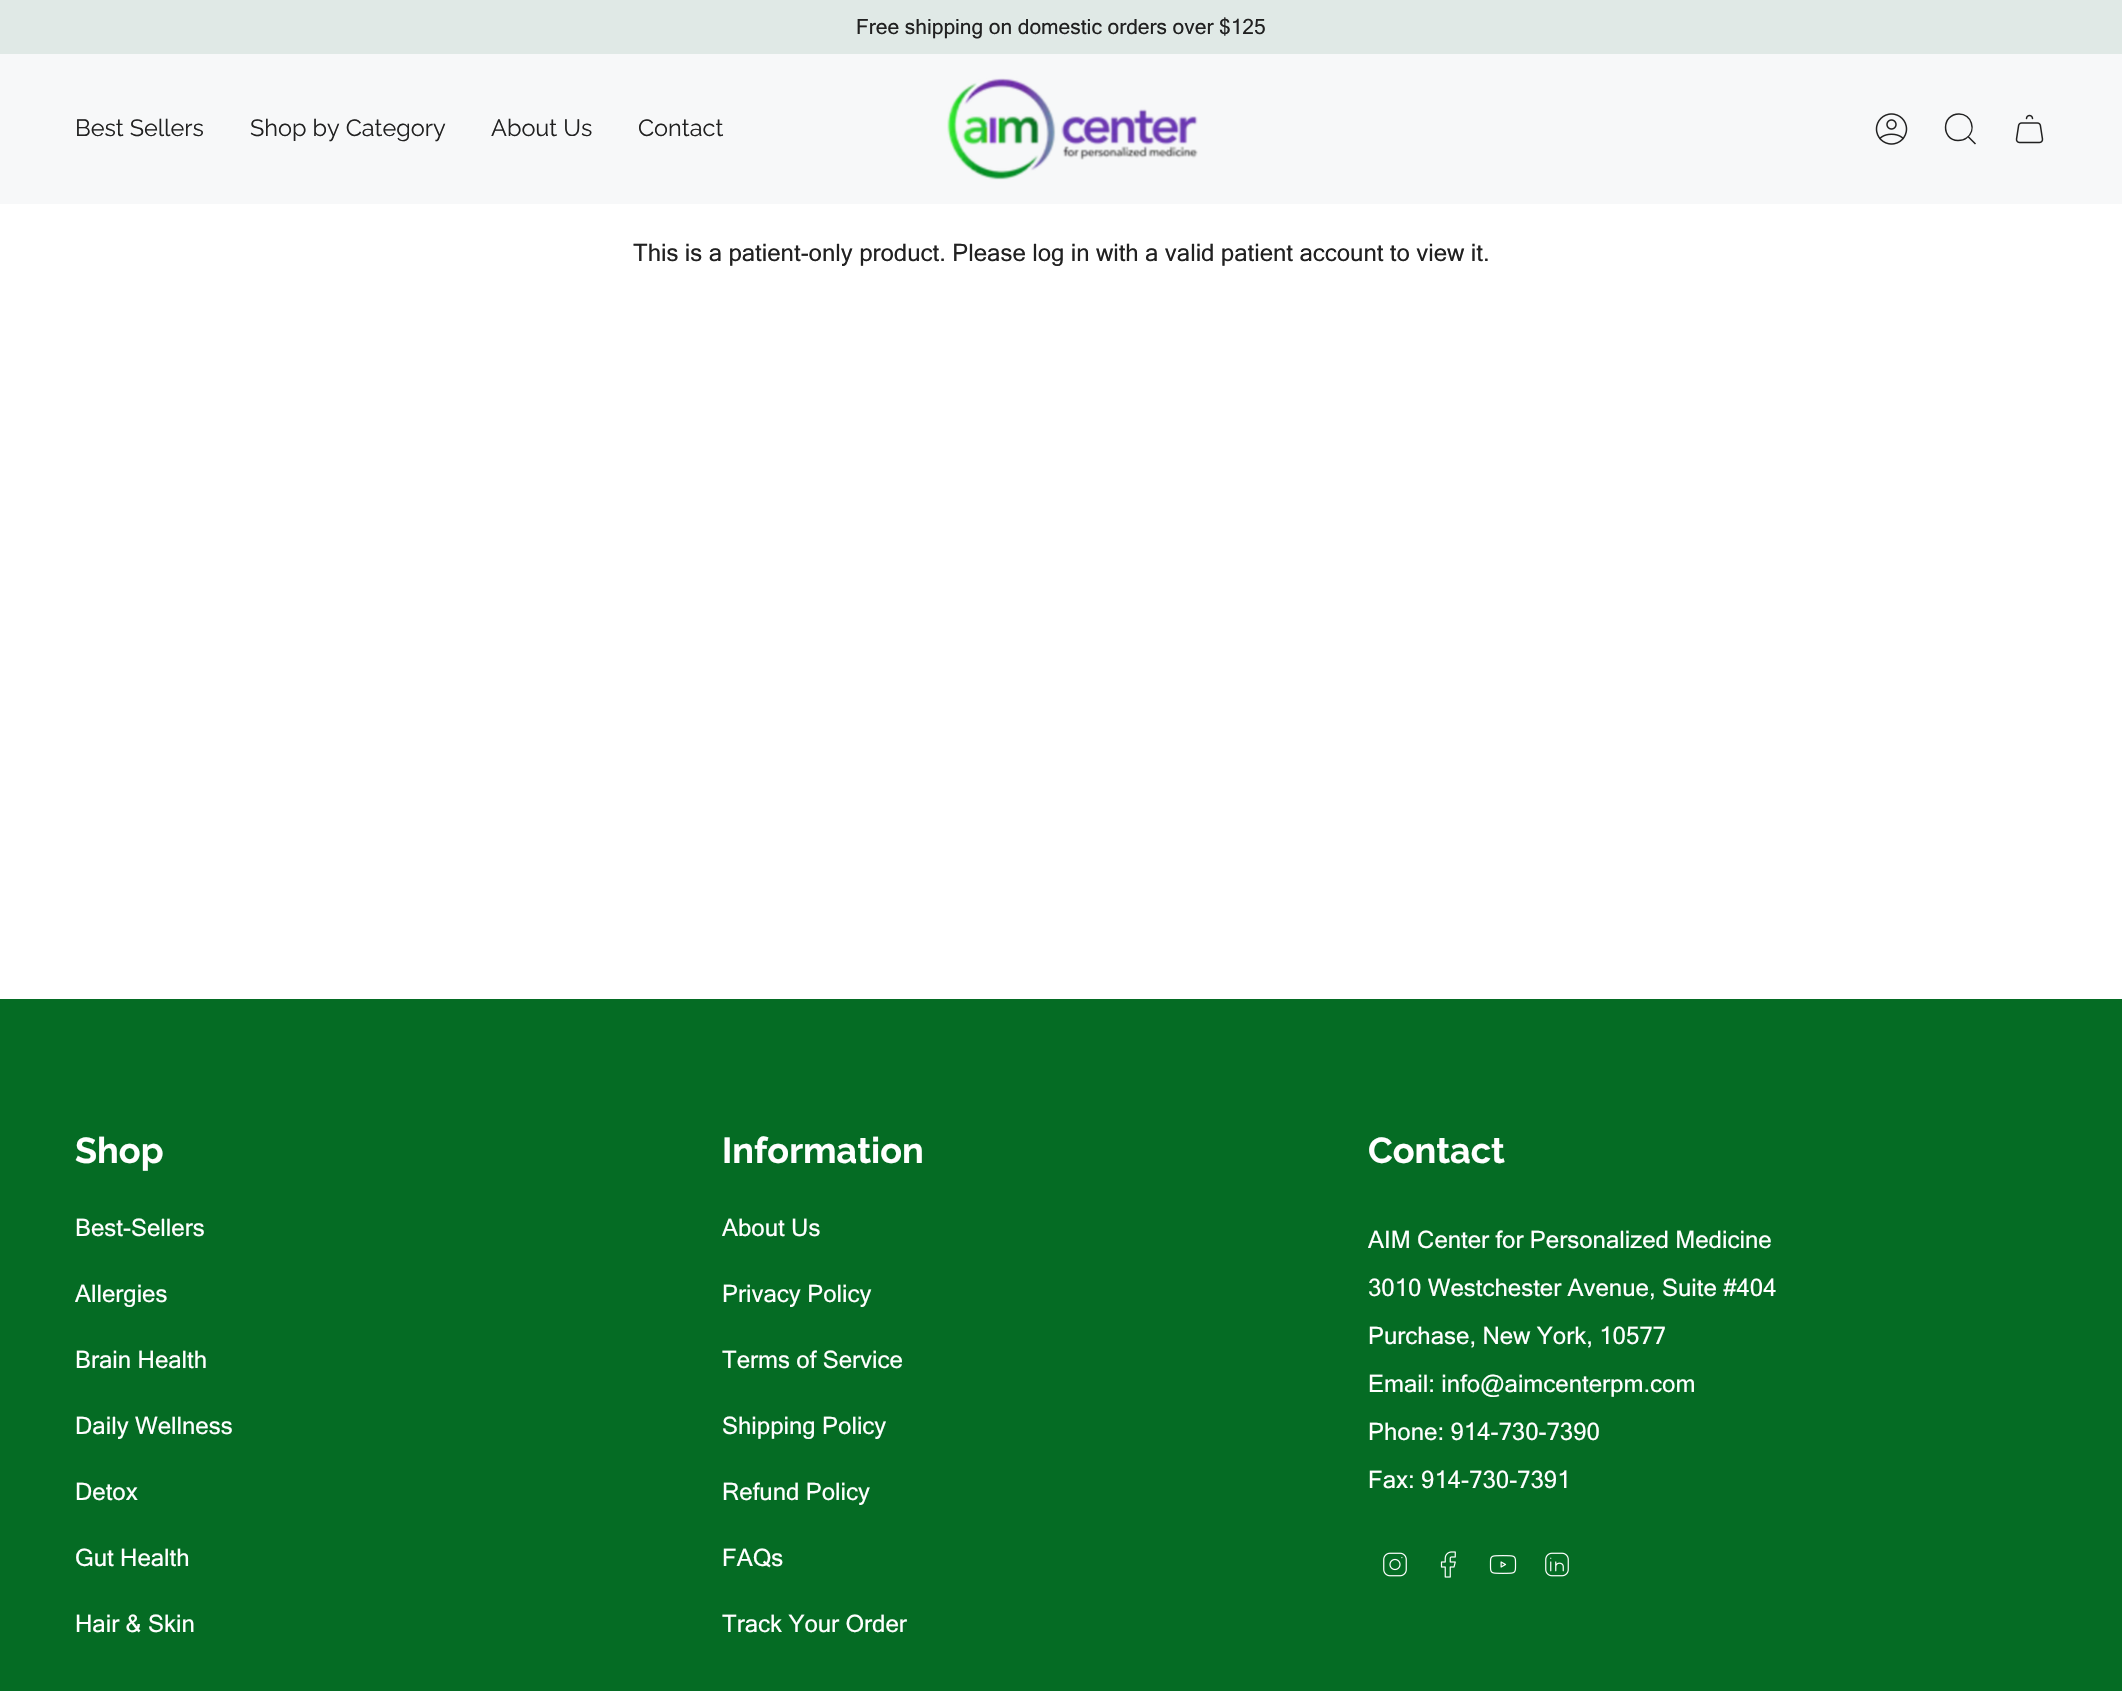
#include "include/core/SkBlurTypes.h"
#include "include/core/SkCanvas.h"
#include "include/core/SkData.h"
#include "include/core/SkFont.h"
#include "include/core/SkFontMgr.h"
#include "include/core/SkImage.h"
#include "include/core/SkMaskFilter.h"
#include "include/core/SkPaint.h"
#include "include/core/SkPathBuilder.h"
#include "include/core/SkTextBlob.h"
#include "include/effects/SkDashPathEffect.h"
#include "include/effects/SkGradientShader.h"
#include "include/utils/SkParsePath.h"

extern sk_sp<SkFontMgr> fontMgr;

static SkFont font(const char* family, int weight, float size, bool italic = false) {
    SkFontStyle style(weight, SkFontStyle::kNormal_Width,
        italic ? SkFontStyle::kItalic_Slant : SkFontStyle::kUpright_Slant);
    SkFont result(fontMgr->matchFamilyStyle(family, style), size);
    result.setSubpixel(true);
    return result;
}

static void drawLabel(SkCanvas* canvas, const char* s, float x, float y, const SkFont& font, SkColor color) {
    SkPaint ink(SkColor4f::FromColor(color));
    ink.setAntiAlias(true);
    canvas->drawString(s, x, y, font, ink);
}

static void fillRect(SkCanvas* canvas, float x, float y, float w, float h, SkColor color) {
    SkPaint ink(SkColor4f::FromColor(color));
    ink.setAntiAlias(true);
    canvas->drawRect(SkRect::MakeXYWH(x, y, w, h), ink);
}

static void drawPhoto(SkCanvas* canvas, const char* path, float x, float y, float w, float h) {
    auto image = SkImages::DeferredFromEncodedData(SkData::MakeFromFileName(path));
    canvas->drawImageRect(image, SkRect::MakeXYWH(x, y, w, h), SkSamplingOptions());
}

static SkPath parsePath(const char* data, bool evenOdd = false) {
    SkPath result = *SkParsePath::FromSVGString(data);
    if (evenOdd) result.setFillType(SkPathFillType::kEvenOdd);
    return result;
}

void draw(SkCanvas* canvas) {
    SkPaint paint;
    paint.setAntiAlias(true);
    canvas->clear(0xFFFFFFFF);
    fillRect(canvas, 0, 0, 2122, 54, 0xFFE0E9E6);
    SkFont font1 = font("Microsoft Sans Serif", 400, 21);
    drawLabel(canvas, "Free shipping on domestic orders over $125", 856, 34, font1, 0xFF212121);
    fillRect(canvas, 0, 54, 2122, 150, 0xFFF7F8F9);
    SkFont font2 = font("Raleway", 400, 23.5f);
    drawLabel(canvas, "Best Sellers", 75, 136, font2, 0xFF212121);
    drawLabel(canvas, "Shop by Category", 250, 136, font2, 0xFF212121);
    drawLabel(canvas, "About Us", 491, 136, font2, 0xFF212121);
    drawLabel(canvas, "Contact", 638, 136, font2, 0xFF212121);
    drawPhoto(canvas, "assets/img1.png", 947, 78, 251, 102);
    drawPhoto(canvas, "assets/img2.png", 1875, 113, 33, 32);
    paint.setStroke(true);
    paint.setStrokeWidth(1.5f);
    paint.setColor(0xFF212121);
    canvas->drawPath(parsePath("M1959 114C1971.5 114 1977 130.5 1966.5 138C1964 140 1961 140.5 1958 140.5C1941 140 1941.5 114 1959 114ZM1968 136.5L1975.5 144"), paint);
    drawPhoto(canvas, "assets/img3.png", 2015, 114, 29, 30);
    SkFont font3 = font("Microsoft Sans Serif", 400, 24);
    drawLabel(canvas, "This is a patient-only product. Please log in with a valid patient account to view it.", 633, 261, font3, 0xFF212121);
    fillRect(canvas, 0, 999, 2122, 692, 0xFF056C24);
    SkFont font4 = font("Raleway", 700, 36);
    drawLabel(canvas, "Shop", 75, 1163, font4, 0xFFFFFFFF);
    drawLabel(canvas, "Best-Sellers", 75, 1236, font3, 0xFFFFFFFF);
    drawLabel(canvas, "Allergies", 75, 1302, font3, 0xFFFFFFFF);
    drawLabel(canvas, "Brain Health", 75, 1368, font3, 0xFFFFFFFF);
    drawLabel(canvas, "Daily Wellness", 75, 1434, font3, 0xFFFFFFFF);
    drawLabel(canvas, "Detox", 75, 1500, font3, 0xFFFFFFFF);
    drawLabel(canvas, "Gut Health", 75, 1566, font3, 0xFFFFFFFF);
    drawLabel(canvas, "Hair & Skin", 75, 1632, font3, 0xFFFFFFFF);
    drawLabel(canvas, "Information", 722, 1163, font4, 0xFFFFFFFF);
    drawLabel(canvas, "About Us", 722, 1236, font3, 0xFFFFFFFF);
    drawLabel(canvas, "Privacy Policy", 722, 1302, font3, 0xFFFFFFFF);
    drawLabel(canvas, "Terms of Service", 722, 1368, font3, 0xFFFFFFFF);
    drawLabel(canvas, "Shipping Policy", 722, 1434, font3, 0xFFFFFFFF);
    drawLabel(canvas, "Refund Policy", 722, 1500, font3, 0xFFFFFFFF);
    drawLabel(canvas, "FAQs", 722, 1566, font3, 0xFFFFFFFF);
    drawLabel(canvas, "Track Your Order", 722, 1632, font3, 0xFFFFFFFF);
    drawLabel(canvas, "Contact", 1368, 1163, font4, 0xFFFFFFFF);
    drawLabel(canvas, "AIM Center for Personalized Medicine", 1368, 1248, font3, 0xFFFFFFFF);
    drawLabel(canvas, "3010 Westchester Avenue, Suite #404", 1368, 1296, font3, 0xFFFFFFFF);
    drawLabel(canvas, "Purchase, New York, 10577", 1368, 1344, font3, 0xFFFFFFFF);
    drawLabel(canvas, "Email: info@aimcenterpm.com", 1368, 1392, font3, 0xFFFFFFFF);
    drawLabel(canvas, "Phone: 914-730-7390", 1368, 1440, font3, 0xFFFFFFFF);
    drawLabel(canvas, "Fax: 914-730-7391", 1368, 1488, font3, 0xFFFFFFFF);
    drawPhoto(canvas, "assets/img4.png", 1383, 1552, 24, 25);
    drawPhoto(canvas, "assets/img5.png", 1440, 1551, 16, 27);
    drawPhoto(canvas, "assets/img6.png", 1489, 1555, 28, 19);
    drawPhoto(canvas, "assets/img7.png", 1545, 1552, 24, 25);
}
